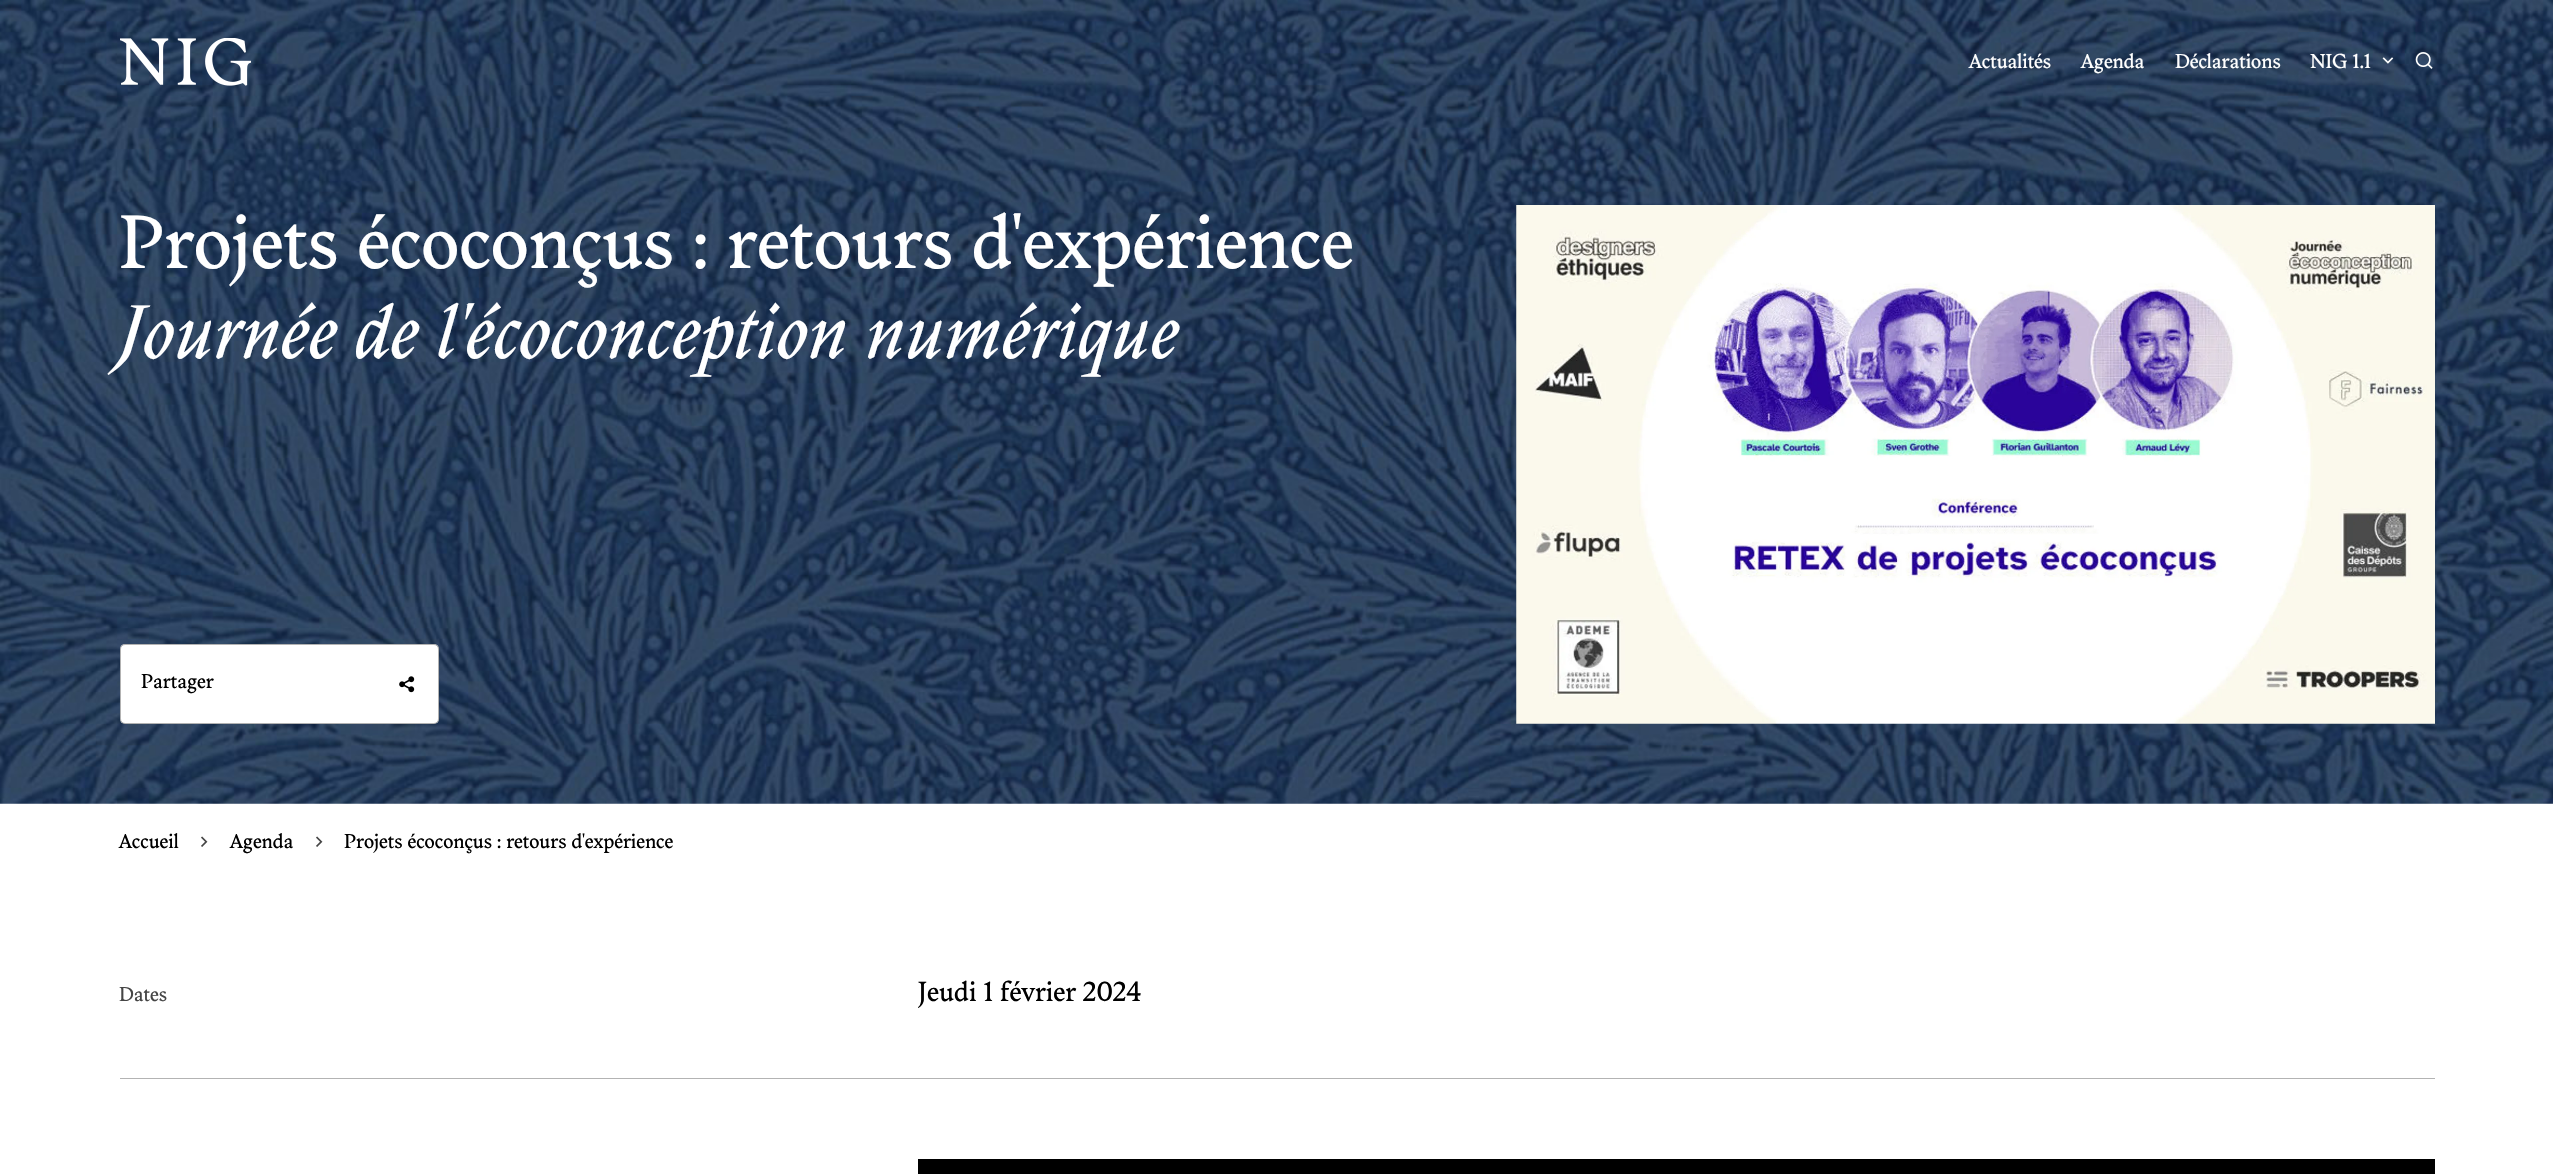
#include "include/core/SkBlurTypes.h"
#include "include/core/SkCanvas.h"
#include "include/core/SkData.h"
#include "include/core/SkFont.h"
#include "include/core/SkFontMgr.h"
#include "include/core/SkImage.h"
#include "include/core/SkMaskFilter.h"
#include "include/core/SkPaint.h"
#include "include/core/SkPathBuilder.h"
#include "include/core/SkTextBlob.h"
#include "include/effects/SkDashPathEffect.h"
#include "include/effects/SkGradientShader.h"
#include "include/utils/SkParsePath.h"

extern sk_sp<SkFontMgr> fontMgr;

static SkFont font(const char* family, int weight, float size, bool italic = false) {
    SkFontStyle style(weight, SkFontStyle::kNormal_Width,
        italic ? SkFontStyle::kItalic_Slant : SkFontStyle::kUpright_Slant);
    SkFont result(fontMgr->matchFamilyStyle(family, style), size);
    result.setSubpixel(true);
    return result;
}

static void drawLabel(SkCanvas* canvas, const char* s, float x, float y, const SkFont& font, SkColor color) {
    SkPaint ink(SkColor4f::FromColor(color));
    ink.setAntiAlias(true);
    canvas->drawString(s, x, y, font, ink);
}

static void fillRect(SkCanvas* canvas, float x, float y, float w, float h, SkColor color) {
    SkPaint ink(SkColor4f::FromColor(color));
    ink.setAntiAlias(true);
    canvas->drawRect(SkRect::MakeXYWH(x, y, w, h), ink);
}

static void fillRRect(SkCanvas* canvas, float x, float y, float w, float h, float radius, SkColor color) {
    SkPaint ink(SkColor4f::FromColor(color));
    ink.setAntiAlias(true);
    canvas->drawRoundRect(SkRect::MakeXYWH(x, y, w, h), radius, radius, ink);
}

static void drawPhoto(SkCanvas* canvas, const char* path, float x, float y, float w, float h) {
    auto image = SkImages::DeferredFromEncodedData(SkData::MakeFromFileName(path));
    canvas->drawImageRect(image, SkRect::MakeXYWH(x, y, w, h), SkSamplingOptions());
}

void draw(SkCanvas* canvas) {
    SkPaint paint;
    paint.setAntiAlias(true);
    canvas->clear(0xFFFFFFFF);
    drawPhoto(canvas, "assets/img4.png", 0, 0, 2553, 804);
    drawPhoto(canvas, "assets/img1.png", 120, 38, 131, 48);
    SkFont font1 = font("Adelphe", 400, 20);
    drawLabel(canvas, "Actualités", 1969, 68, font1, 0xFFFFFFFF);
    drawLabel(canvas, "Agenda", 2081, 68, font1, 0xFFFFFFFF);
    drawLabel(canvas, "Déclarations", 2175, 68, font1, 0xFFFFFFFF);
    drawLabel(canvas, "NIG 1.1", 2310, 68, font1, 0xFFFFFFFF);
    drawPhoto(canvas, "assets/img2.png", 2382, 57, 12, 7);
    drawPhoto(canvas, "assets/img3.png", 2415, 52, 18, 17);
    SkFont font2 = font("Adelphe", 400, 75);
    drawLabel(canvas, "Projets écoconçus : retours d'expérience", 119, 268, font2, 0xFFFFFFFF);
    SkFont font3 = font("Adelphe", 100, 75, true);
    drawLabel(canvas, "Journée de l'écoconception numérique", 119, 358, font3, 0xFFFFFFFF);
    fillRRect(canvas, 120, 644, 319, 80, 5, 0xFFFFFFFF);
    paint.setStroke(true);
    paint.setStrokeWidth(1);
    paint.setColor(0x4D000000);
    canvas->drawRoundRect(SkRect::MakeXYWH(120.5f, 644.5f, 318, 79), 4.5f, 4.5f, paint);
    drawLabel(canvas, "Partager", 141, 688, font1, 0xFF000000);
    drawPhoto(canvas, "assets/img5.png", 399, 676, 16, 17);
    drawPhoto(canvas, "assets/img6.png", 1516, 205, 919, 519);
    drawLabel(canvas, "Accueil", 119, 848, font1, 0xFF000000);
    drawPhoto(canvas, "assets/img7.png", 201, 836, 7, 11);
    drawLabel(canvas, "Agenda", 230, 848, font1, 0xFF000000);
    drawPhoto(canvas, "assets/img7.png", 316, 836, 7, 11);
    drawLabel(canvas, "Projets écoconçus : retours d'expérience", 344, 848, font1, 0xFF000000);
    fillRect(canvas, 120, 1078, 2315, 1, 0xFFB3B3B3);
    drawLabel(canvas, "Dates", 119, 1001, font1, 0xFF454545);
    SkFont font4 = font("Adelphe", 400, 27.5f);
    drawLabel(canvas, "Jeudi 1 février 2024", 918, 1001, font4, 0xFF000000);
    fillRect(canvas, 918, 1159, 1517, 15, 0xFF000000);
}
